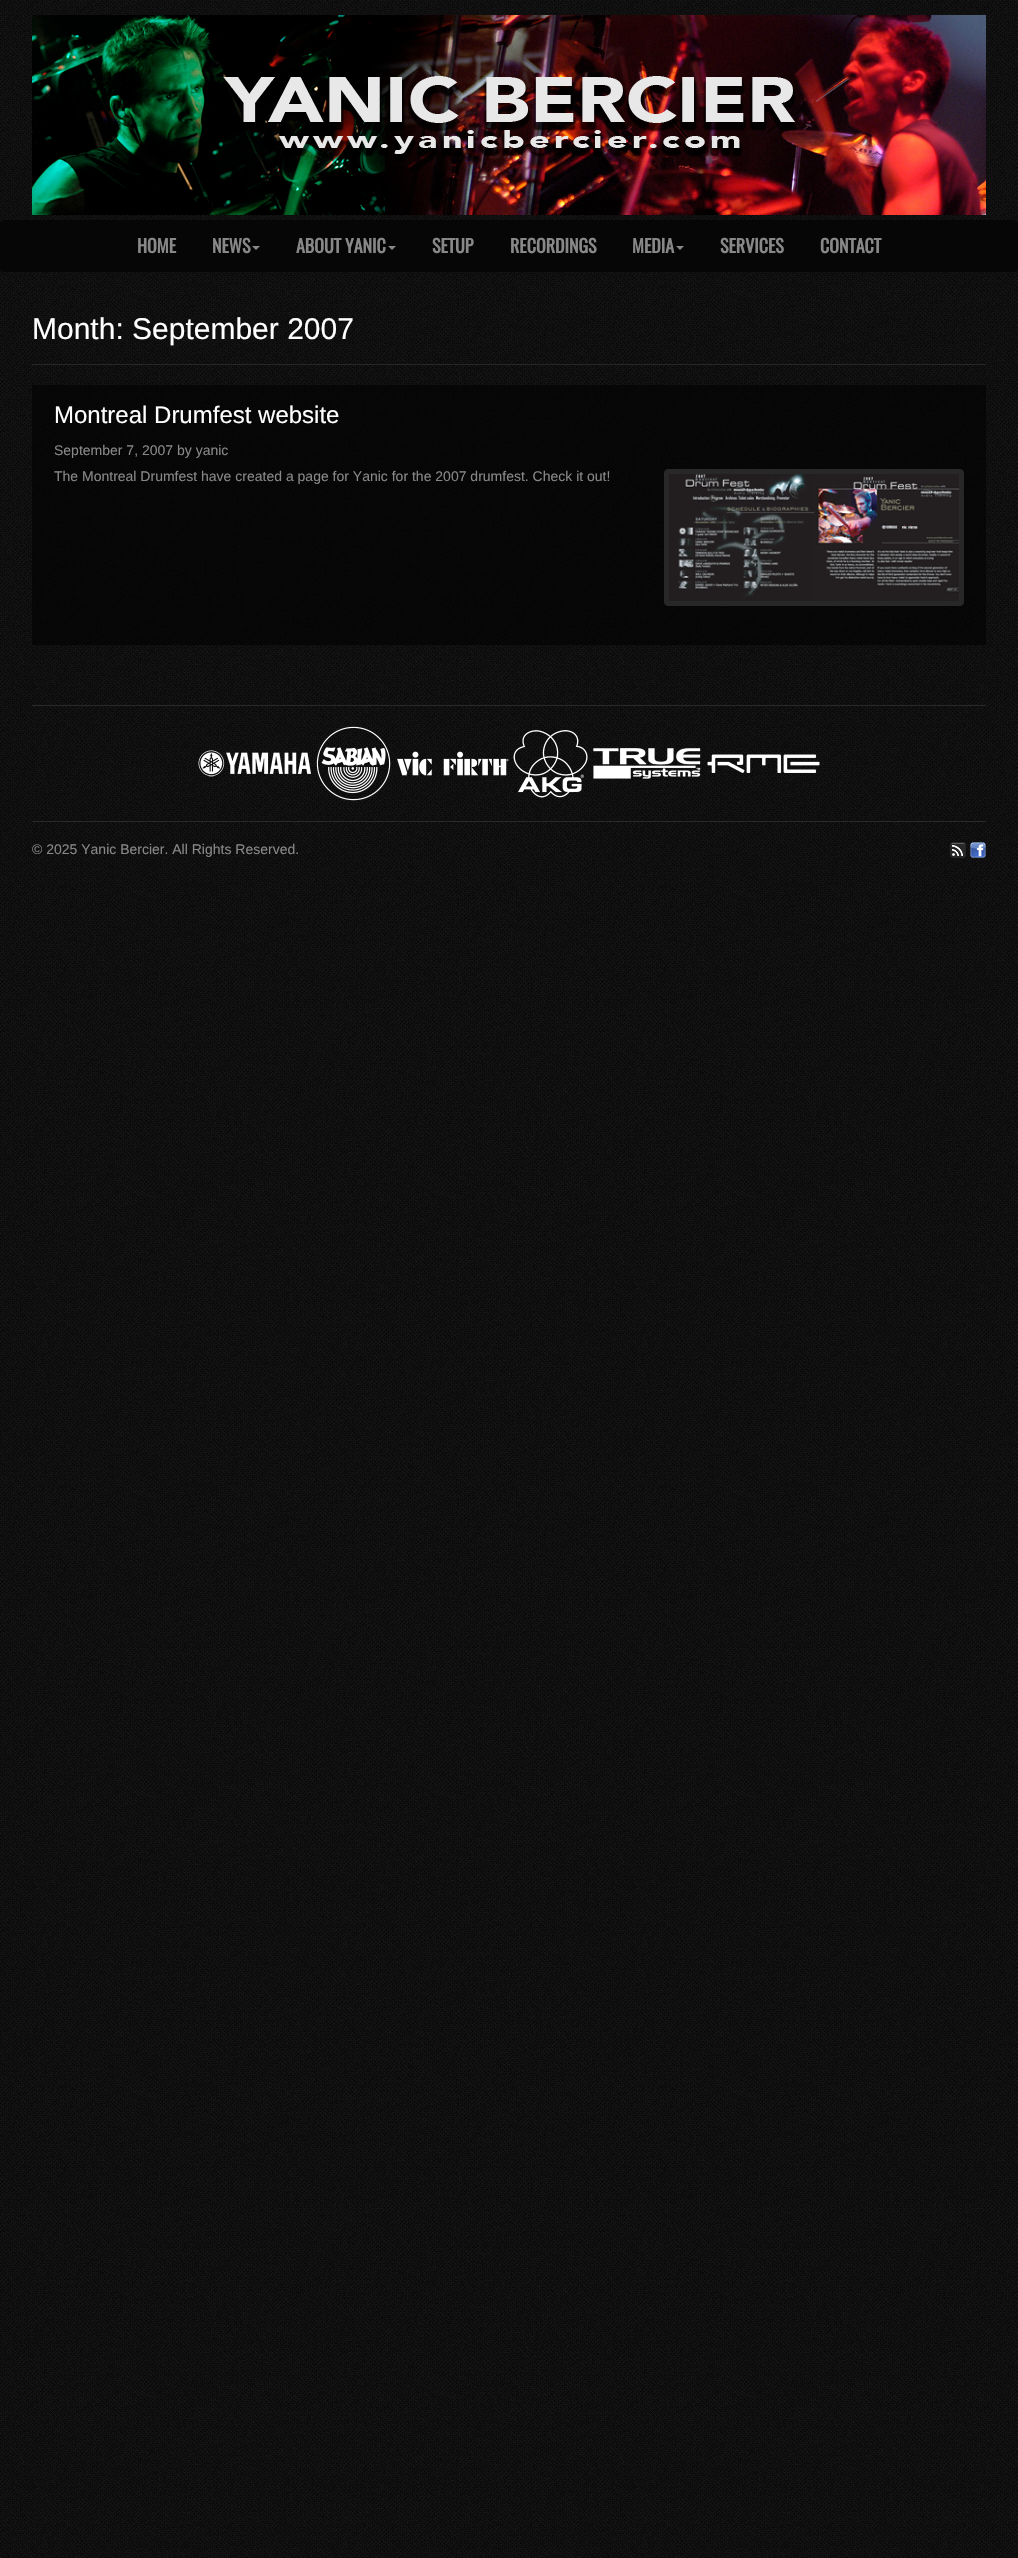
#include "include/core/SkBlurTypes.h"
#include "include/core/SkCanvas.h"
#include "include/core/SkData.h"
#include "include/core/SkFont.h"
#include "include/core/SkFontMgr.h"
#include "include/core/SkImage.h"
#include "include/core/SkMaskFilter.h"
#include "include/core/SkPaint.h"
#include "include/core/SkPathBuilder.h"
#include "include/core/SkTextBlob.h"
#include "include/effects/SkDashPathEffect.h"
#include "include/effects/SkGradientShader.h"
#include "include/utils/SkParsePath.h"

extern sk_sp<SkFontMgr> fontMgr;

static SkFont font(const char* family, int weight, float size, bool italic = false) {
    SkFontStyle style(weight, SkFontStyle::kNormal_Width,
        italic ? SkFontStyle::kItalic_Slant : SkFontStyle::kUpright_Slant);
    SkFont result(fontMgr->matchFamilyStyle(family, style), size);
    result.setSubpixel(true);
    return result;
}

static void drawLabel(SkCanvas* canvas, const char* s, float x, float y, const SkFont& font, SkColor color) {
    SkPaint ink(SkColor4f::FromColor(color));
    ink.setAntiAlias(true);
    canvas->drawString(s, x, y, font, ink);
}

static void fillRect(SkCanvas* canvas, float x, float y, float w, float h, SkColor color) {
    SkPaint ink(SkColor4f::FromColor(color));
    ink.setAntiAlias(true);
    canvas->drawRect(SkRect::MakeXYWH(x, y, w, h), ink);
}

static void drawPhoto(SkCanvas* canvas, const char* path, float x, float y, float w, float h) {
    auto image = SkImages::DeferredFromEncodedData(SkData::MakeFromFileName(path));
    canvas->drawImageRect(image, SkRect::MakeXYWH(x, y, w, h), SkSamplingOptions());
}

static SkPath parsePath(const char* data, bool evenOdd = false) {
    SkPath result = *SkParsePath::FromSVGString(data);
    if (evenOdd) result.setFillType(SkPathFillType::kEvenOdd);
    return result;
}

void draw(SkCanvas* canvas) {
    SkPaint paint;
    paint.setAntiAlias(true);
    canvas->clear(0xFF060606);
    drawPhoto(canvas, "assets/img1.png", 0, 0, 1018, 2558);
    drawPhoto(canvas, "assets/img2.png", 32, 15, 954, 200);
    paint.setColor(0xFF060606);
    canvas->drawRoundRect(SkRect::MakeXYWH(0.5f, 220.5f, 1017, 51), 3.5f, 3.5f, paint);
    paint.setStroke(true);
    paint.setStrokeWidth(1);
    canvas->drawRoundRect(SkRect::MakeXYWH(0.5f, 220.5f, 1017, 51), 3.5f, 3.5f, paint);
    SkFont font1 = font("Oswald", 700, 18);
    drawLabel(canvas, "HOME", 137, 253, font1, 0xFF888888);
    drawLabel(canvas, "NEWS", 212, 253, font1, 0xFF888888);
    paint.setStroke(false);
    paint.setColor(0xFF888888);
    canvas->drawPath(parsePath("M252 246H260L256 250Z"), paint);
    drawLabel(canvas, "ABOUT YANIC", 296, 253, font1, 0xFF888888);
    canvas->drawPath(parsePath("M388 246H396L392 250Z"), paint);
    drawLabel(canvas, "SETUP", 432, 253, font1, 0xFF888888);
    drawLabel(canvas, "RECORDINGS", 510, 253, font1, 0xFF888888);
    drawLabel(canvas, "MEDIA", 632, 253, font1, 0xFF888888);
    canvas->drawPath(parsePath("M676 246H684L680 250Z"), paint);
    drawLabel(canvas, "SERVICES", 720, 253, font1, 0xFF888888);
    drawLabel(canvas, "CONTACT", 820, 253, font1, 0xFF888888);
    fillRect(canvas, 32, 364, 954, 1, 0xFF282828);
    SkFont font2 = font("Liberation Sans", 400, 30);
    drawLabel(canvas, "Month: September 2007", 32, 339, font2, 0xFFFFFFFF);
    fillRect(canvas, 32, 385, 954, 260, 0x99000000);
    SkFont font3 = font("Liberation Sans", 400, 24);
    drawLabel(canvas, "Montreal Drumfest website", 54, 423, font3, 0xFFFFFFFF);
    SkFont font4 = font("Liberation Sans", 400, 14);
    drawLabel(canvas, "September 7, 2007 by yanic", 54, 455, font4, 0xFF888888);
    drawLabel(canvas, "The Montreal Drumfest have created a page for Yanic for the 2007 drumfest. Check it out!", 54, 481, font4, 0xFF888888);
    paint.setColor(0xFF282828);
    canvas->drawRoundRect(SkRect::MakeXYWH(664.5f, 469.5f, 299, 136), 3.5f, 3.5f, paint);
    paint.setStroke(true);
    canvas->drawRoundRect(SkRect::MakeXYWH(664.5f, 469.5f, 299, 136), 3.5f, 3.5f, paint);
    drawPhoto(canvas, "assets/img3.png", 669, 474, 290, 127);
    fillRect(canvas, 32, 705, 954, 1, 0xFF282828);
    drawPhoto(canvas, "assets/img4.png", 198, 750, 113, 27);
    drawPhoto(canvas, "assets/img5.png", 316, 726, 75, 75);
    drawPhoto(canvas, "assets/img6.png", 397, 751, 112, 25);
    drawPhoto(canvas, "assets/img7.png", 513, 730, 75, 68);
    drawPhoto(canvas, "assets/img8.png", 593, 748, 108, 31);
    drawPhoto(canvas, "assets/img9.png", 707, 754, 113, 19);
    fillRect(canvas, 32, 821, 954, 1, 0xFF282828);
    drawLabel(canvas, "© 2025 Yanic Bercier. All Rights Reserved.", 32, 854, font4, 0xFF888888);
    drawPhoto(canvas, "assets/img10.png", 950, 842, 16, 16);
    drawPhoto(canvas, "assets/img11.png", 970, 842, 16, 16);
}
